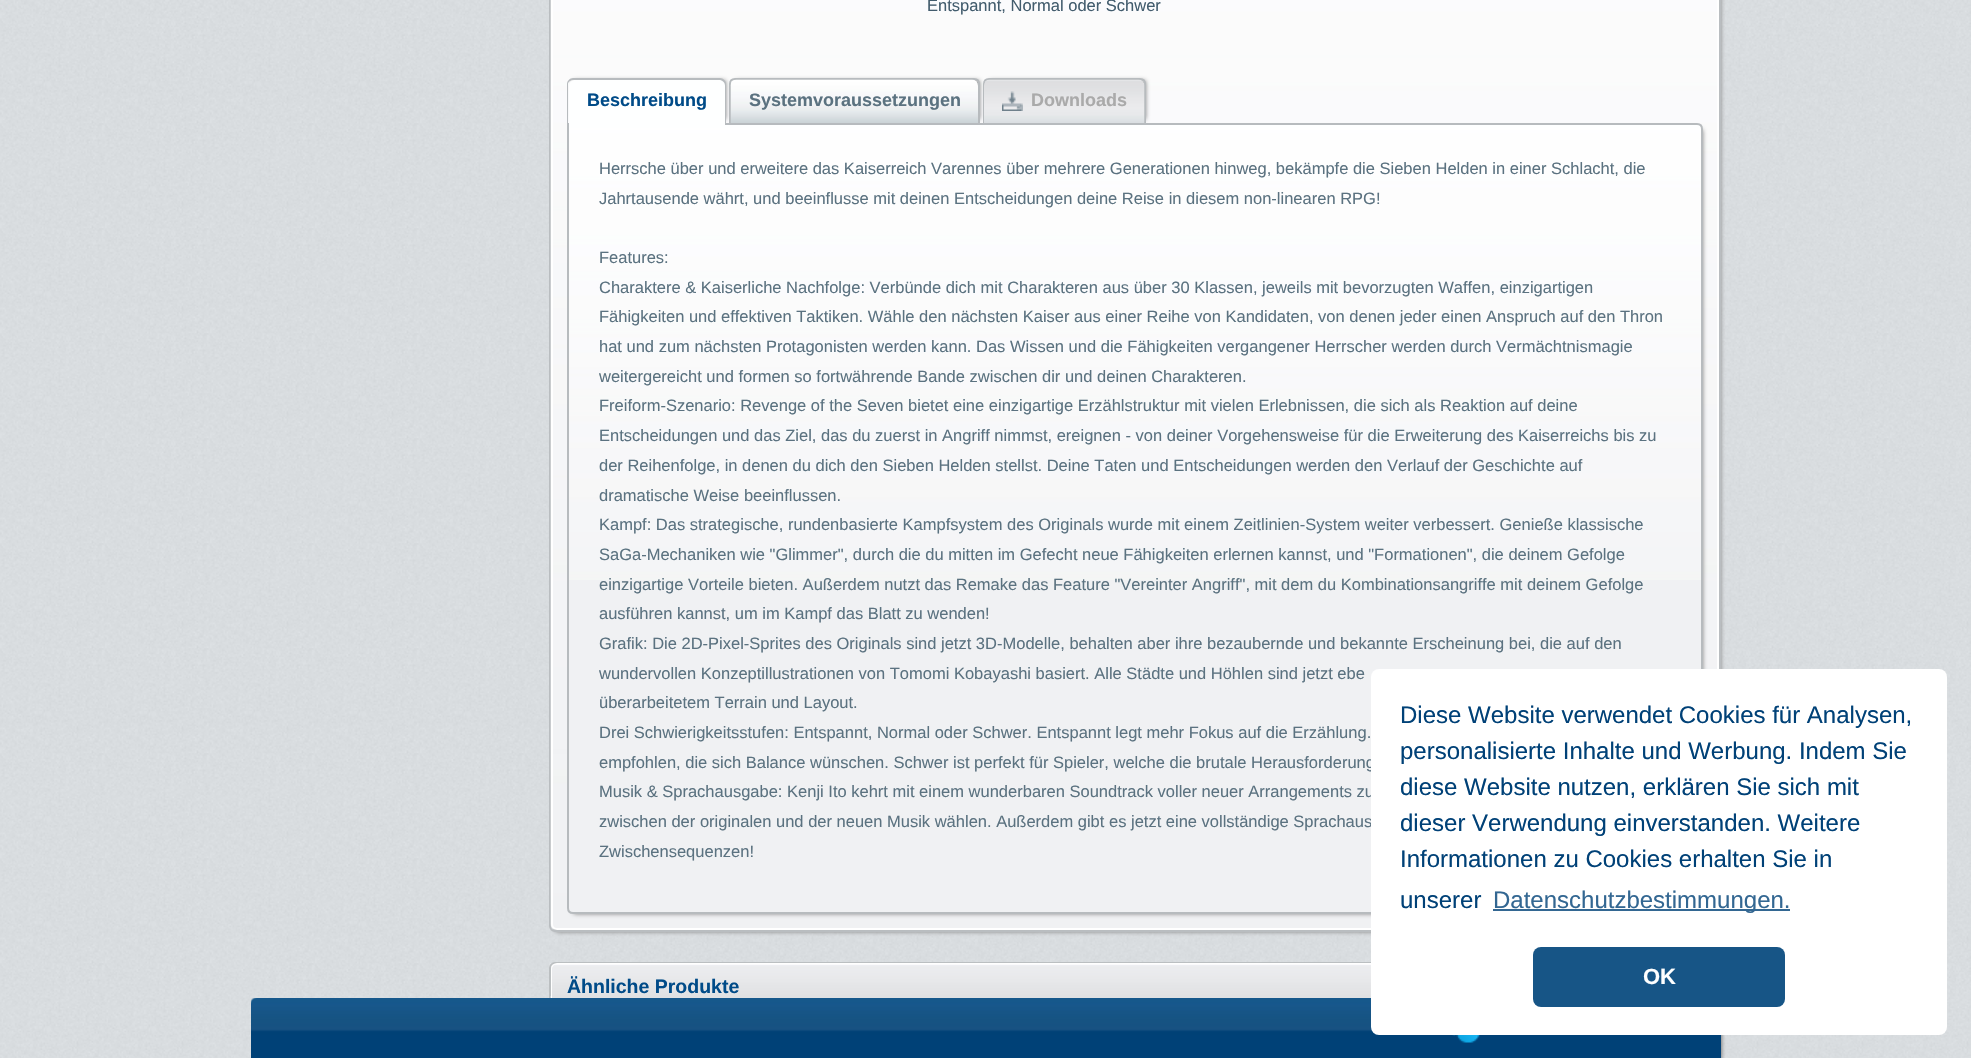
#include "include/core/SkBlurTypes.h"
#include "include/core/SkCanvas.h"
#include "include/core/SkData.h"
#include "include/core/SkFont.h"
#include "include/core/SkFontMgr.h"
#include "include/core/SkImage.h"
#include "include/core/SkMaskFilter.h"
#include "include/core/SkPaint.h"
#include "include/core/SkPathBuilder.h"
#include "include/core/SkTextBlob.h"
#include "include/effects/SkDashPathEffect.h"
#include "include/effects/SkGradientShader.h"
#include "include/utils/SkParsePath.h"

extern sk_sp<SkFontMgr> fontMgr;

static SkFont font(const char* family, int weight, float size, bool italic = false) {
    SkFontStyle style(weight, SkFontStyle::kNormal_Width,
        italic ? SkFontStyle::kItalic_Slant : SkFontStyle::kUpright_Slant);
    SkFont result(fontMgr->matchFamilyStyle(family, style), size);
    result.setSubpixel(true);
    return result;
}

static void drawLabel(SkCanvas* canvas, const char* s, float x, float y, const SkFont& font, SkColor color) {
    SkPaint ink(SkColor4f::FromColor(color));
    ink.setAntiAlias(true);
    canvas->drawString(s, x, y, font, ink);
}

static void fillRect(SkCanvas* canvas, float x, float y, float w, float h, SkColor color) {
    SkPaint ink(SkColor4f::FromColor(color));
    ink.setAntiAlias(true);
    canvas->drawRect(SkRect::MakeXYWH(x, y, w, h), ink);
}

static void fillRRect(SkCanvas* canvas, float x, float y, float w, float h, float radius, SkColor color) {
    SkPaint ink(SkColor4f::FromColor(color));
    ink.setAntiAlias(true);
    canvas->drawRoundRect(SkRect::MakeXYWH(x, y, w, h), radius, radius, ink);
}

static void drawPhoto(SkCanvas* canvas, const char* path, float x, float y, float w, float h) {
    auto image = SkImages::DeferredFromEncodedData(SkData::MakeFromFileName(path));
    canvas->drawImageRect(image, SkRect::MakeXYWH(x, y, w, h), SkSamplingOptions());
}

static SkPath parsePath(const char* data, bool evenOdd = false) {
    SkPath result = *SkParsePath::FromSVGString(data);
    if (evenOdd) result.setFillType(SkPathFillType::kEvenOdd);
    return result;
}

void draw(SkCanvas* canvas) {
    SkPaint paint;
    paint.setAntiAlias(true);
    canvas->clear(0xFFFFFFFF);
    drawPhoto(canvas, "assets/img1.png", 0, 0, 1971, 1058);
    paint.setColor(0xFF888888);
    paint.setMaskFilter(SkMaskFilter::MakeBlur(kNormal_SkBlurStyle, 2));
    canvas->drawRoundRect(SkRect::MakeXYWH(555, -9, 1166, 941), 3, 3, paint);
    paint.setMaskFilter(nullptr);
    paint.setStroke(true);
    paint.setStrokeWidth(2);
    paint.setColor(0xFFB9BDC0);
    canvas->drawRoundRect(SkRect::MakeXYWH(550, -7, 1170, 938), 5, 5, paint);
    drawPhoto(canvas, "assets/img2.png", 550, 0, 1167, 929);
    paint.setColor(0xFFFFFFFF);
    canvas->drawRoundRect(SkRect::MakeXYWH(552, -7, 1166, 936), 5, 5, paint);
    SkFont font1 = font("Liberation Sans", 400, 16.5f);
    drawLabel(canvas, "Entspannt, Normal oder Schwer", 927, 11, font1, 0xFF425C6D);
    paint.setStroke(false);
    paint.setColor(0xFF888888);
    paint.setMaskFilter(SkMaskFilter::MakeBlur(kNormal_SkBlurStyle, 2));
    canvas->drawRoundRect(SkRect::MakeXYWH(573, 129, 1130, 785), 3, 3, paint);
    paint.setMaskFilter(nullptr);
    paint.setColor(0xFFF0F1F3);
    canvas->drawPath(parsePath("M567 123H1697C1700.5 123 1703 125.5 1703 129V908C1703 911.5 1700.5 914 1697 914H573C569.5 914 567 911.5 567 908Z"), paint);
    drawPhoto(canvas, "assets/img6.png", 569, 124, 1133, 456);
    paint.setStroke(true);
    paint.setColor(0xFFB7BBBE);
    canvas->drawPath(parsePath("M568 124H1697C1700 124 1702 126 1702 129V908C1702 911 1700 913 1697 913H573C570 913 568 911 568 908Z"), paint);
    paint.setStroke(false);
    paint.setColor(0xFF888888);
    paint.setMaskFilter(SkMaskFilter::MakeBlur(kNormal_SkBlurStyle, 2));
    canvas->drawRoundRect(SkRect::MakeXYWH(573, 80, 153, 40), 3, 3, paint);
    paint.setMaskFilter(nullptr);
    paint.setColor(0xFFB7BBBE);
    canvas->drawPath(parsePath("M573 78H720C723 78 726 81 726 84V124H567V84C567 81 570 78 573 78ZM573 80H720C722 80 724 82 724 84V124H568V84C568 82 571 80 573 80Z", true), paint);
    paint.setColor(0xFFFEFFFF);
    canvas->drawPath(parsePath("M575 80H719C722.5 80 725 82.5 725 86V125H569V86C569 82.5 571.5 80 575 80Z"), paint);
    SkFont font2 = font("Liberation Sans", 700, 18);
    drawLabel(canvas, "Beschreibung", 587, 106, font2, 0xFF004B88);
    paint.setColor(0xFF888888);
    paint.setMaskFilter(SkMaskFilter::MakeBlur(kNormal_SkBlurStyle, 2));
    canvas->drawRoundRect(SkRect::MakeXYWH(735, 80, 245, 40), 3, 3, paint);
    paint.setMaskFilter(nullptr);
    paint.setStroke(true);
    paint.setColor(0xFFB7BBBE);
    canvas->drawPath(parsePath("M735 79H974C977 79 979 81 979 84V124H730V84C730 81 732 79 735 79Z"), paint);
    drawPhoto(canvas, "assets/img3.png", 730, 79, 248, 44);
    drawLabel(canvas, "Systemvoraussetzungen", 749, 106, font2, 0xFF5B7280);
    paint.setStroke(false);
    paint.setColor(0xFF888888);
    paint.setMaskFilter(SkMaskFilter::MakeBlur(kNormal_SkBlurStyle, 2));
    canvas->drawRoundRect(SkRect::MakeXYWH(989, 80, 157, 40), 3, 3, paint);
    paint.setMaskFilter(nullptr);
    paint.setStroke(true);
    paint.setColor(0xFFB7BBBE);
    canvas->drawPath(parsePath("M989 79H1140C1143 79 1145 81 1145 84V124H984V84C984 81 986 79 989 79Z"), paint);
    drawPhoto(canvas, "assets/img4.png", 984, 79, 161, 44);
    drawPhoto(canvas, "assets/img5.png", 1002, 91, 21, 20);
    drawLabel(canvas, "Downloads", 1031, 106, font2, 0xFFAAAAAA);
    drawLabel(canvas, "Herrsche über und erweitere das Kaiserreich Varennes über mehrere Generationen hinweg, bekämpfe die Sieben Helden in einer Schlacht, die", 599, 174, font1, 0xFF5B7280);
    drawLabel(canvas, "Jahrtausende währt, und beeinflusse mit deinen Entscheidungen deine Reise in diesem non-linearen RPG!", 599, 204, font1, 0xFF5B7280);
    drawLabel(canvas, "Features:", 599, 263, font1, 0xFF5B7280);
    drawLabel(canvas, "Charaktere & Kaiserliche Nachfolge: Verbünde dich mit Charakteren aus über 30 Klassen, jeweils mit bevorzugten Waffen, einzigartigen", 599, 293, font1, 0xFF5B7280);
    drawLabel(canvas, "Fähigkeiten und effektiven Taktiken. Wähle den nächsten Kaiser aus einer Reihe von Kandidaten, von denen jeder einen Anspruch auf den Thron", 599, 322, font1, 0xFF5B7280);
    drawLabel(canvas, "hat und zum nächsten Protagonisten werden kann. Das Wissen und die Fähigkeiten vergangener Herrscher werden durch Vermächtnismagie", 599, 352, font1, 0xFF5B7280);
    drawLabel(canvas, "weitergereicht und formen so fortwährende Bande zwischen dir und deinen Charakteren.", 599, 382, font1, 0xFF5B7280);
    drawLabel(canvas, "Freiform-Szenario: Revenge of the Seven bietet eine einzigartige Erzählstruktur mit vielen Erlebnissen, die sich als Reaktion auf deine", 599, 411, font1, 0xFF5B7280);
    drawLabel(canvas, "Entscheidungen und das Ziel, das du zuerst in Angriff nimmst, ereignen - von deiner Vorgehensweise für die Erweiterung des Kaiserreichs bis zu", 599, 441, font1, 0xFF5B7280);
    drawLabel(canvas, "der Reihenfolge, in denen du dich den Sieben Helden stellst. Deine Taten und Entscheidungen werden den Verlauf der Geschichte auf", 599, 471, font1, 0xFF5B7280);
    drawLabel(canvas, "dramatische Weise beeinflussen.", 599, 501, font1, 0xFF5B7280);
    drawLabel(canvas, "Kampf: Das strategische, rundenbasierte Kampfsystem des Originals wurde mit einem Zeitlinien-System weiter verbessert. Genieße klassische", 599, 530, font1, 0xFF5B7280);
    drawLabel(canvas, "SaGa-Mechaniken wie \"Glimmer\", durch die du mitten im Gefecht neue Fähigkeiten erlernen kannst, und \"Formationen\", die deinem Gefolge", 599, 560, font1, 0xFF5B7280);
    drawLabel(canvas, "einzigartige Vorteile bieten. Außerdem nutzt das Remake das Feature \"Vereinter Angriff\", mit dem du Kombinationsangriffe mit deinem Gefolge", 599, 590, font1, 0xFF5B7280);
    drawLabel(canvas, "ausführen kannst, um im Kampf das Blatt zu wenden!", 599, 619, font1, 0xFF5B7280);
    drawLabel(canvas, "Grafik: Die 2D-Pixel-Sprites des Originals sind jetzt 3D-Modelle, behalten aber ihre bezaubernde und bekannte Erscheinung bei, die auf den", 599, 649, font1, 0xFF5B7280);
    drawLabel(canvas, "wundervollen Konzeptillustrationen von Tomomi Kobayashi basiert. Alle Städte und Höhlen sind jetzt ebe", 599, 679, font1, 0xFF5B7280);
    drawLabel(canvas, "überarbeitetem Terrain und Layout.", 599, 708, font1, 0xFF5B7280);
    drawLabel(canvas, "Drei Schwierigkeitsstufen: Entspannt, Normal oder Schwer. Entspannt legt mehr Fokus auf die Erzählung.", 599, 738, font1, 0xFF5B7280);
    drawLabel(canvas, "empfohlen, die sich Balance wünschen. Schwer ist perfekt für Spieler, welche die brutale Herausforderung", 599, 768, font1, 0xFF5B7280);
    drawLabel(canvas, "Musik & Sprachausgabe: Kenji Ito kehrt mit einem wunderbaren Soundtrack voller neuer Arrangements zu", 599, 797, font1, 0xFF5B7280);
    drawLabel(canvas, "zwischen der originalen und der neuen Musik wählen. Außerdem gibt es jetzt eine vollständige Sprachaus", 599, 827, font1, 0xFF5B7280);
    drawLabel(canvas, "Zwischensequenzen!", 599, 857, font1, 0xFF5B7280);
    paint.setStroke(false);
    paint.setColor(0xFF888888);
    paint.setMaskFilter(SkMaskFilter::MakeBlur(kNormal_SkBlurStyle, 2));
    canvas->drawRoundRect(SkRect::MakeXYWH(555, 968, 1166, 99), 3, 3, paint);
    paint.setMaskFilter(nullptr);
    drawPhoto(canvas, "assets/img7.png", 549, 963, 6, 6);
    paint.setStroke(true);
    paint.setColor(0xFFBBBFC1);
    canvas->drawRoundRect(SkRect::MakeXYWH(550, 963, 1170, 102), 5, 5, paint);
    drawPhoto(canvas, "assets/img8.png", 550, 996, 1, 2);
    paint.setColor(0xFFFFFFFF);
    canvas->drawRoundRect(SkRect::MakeXYWH(552, 964, 1166, 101), 5, 5, paint);
    drawPhoto(canvas, "assets/img9.png", 552, 964, 819, 34);
    SkFont font3 = font("Liberation Sans", 700, 19.5f);
    drawLabel(canvas, "Ähnliche Produkte", 567, 993, font3, 0xFF004B88);
    paint.setStroke(false);
    paint.setColor(0xFF888888);
    paint.setMaskFilter(SkMaskFilter::MakeBlur(kNormal_SkBlurStyle, 2));
    canvas->drawRoundRect(SkRect::MakeXYWH(257, 1004, 1464, 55), 3, 3, paint);
    paint.setMaskFilter(nullptr);
    drawPhoto(canvas, "assets/img10.png", 251, 998, 1470, 60);
    fillRRect(canvas, 1371, 669, 576, 366, 8, 0xFFFFFFFF);
    SkFont font4 = font("Liberation Sans", 400, 24);
    drawLabel(canvas, "Diese Website verwendet Cookies für Analysen,", 1400, 723, font4, 0xFF004177);
    drawLabel(canvas, "personalisierte Inhalte und Werbung. Indem Sie", 1400, 759, font4, 0xFF004177);
    drawLabel(canvas, "diese Website nutzen, erklären Sie sich mit", 1400, 795, font4, 0xFF004177);
    drawLabel(canvas, "dieser Verwendung einverstanden. Weitere", 1400, 831, font4, 0xFF004177);
    drawLabel(canvas, "Informationen zu Cookies erhalten Sie in", 1400, 867, font4, 0xFF004177);
    drawLabel(canvas, "unserer", 1400, 908, font4, 0xFF004177);
    fillRect(canvas, 1493, 909, 297, 2, 0xFF336792);
    drawLabel(canvas, "Datenschutzbestimmungen.", 1493, 908, font4, 0xFF336792);
    fillRRect(canvas, 1533, 947, 252, 60, 8, 0xFF175586);
    SkFont font5 = font("Liberation Sans", 700, 22);
    drawLabel(canvas, "OK", 1643, 984, font5, 0xFFFFFFFF);
    drawPhoto(canvas, "assets/img11.png", 1452, 1035, 28, 8);
}
